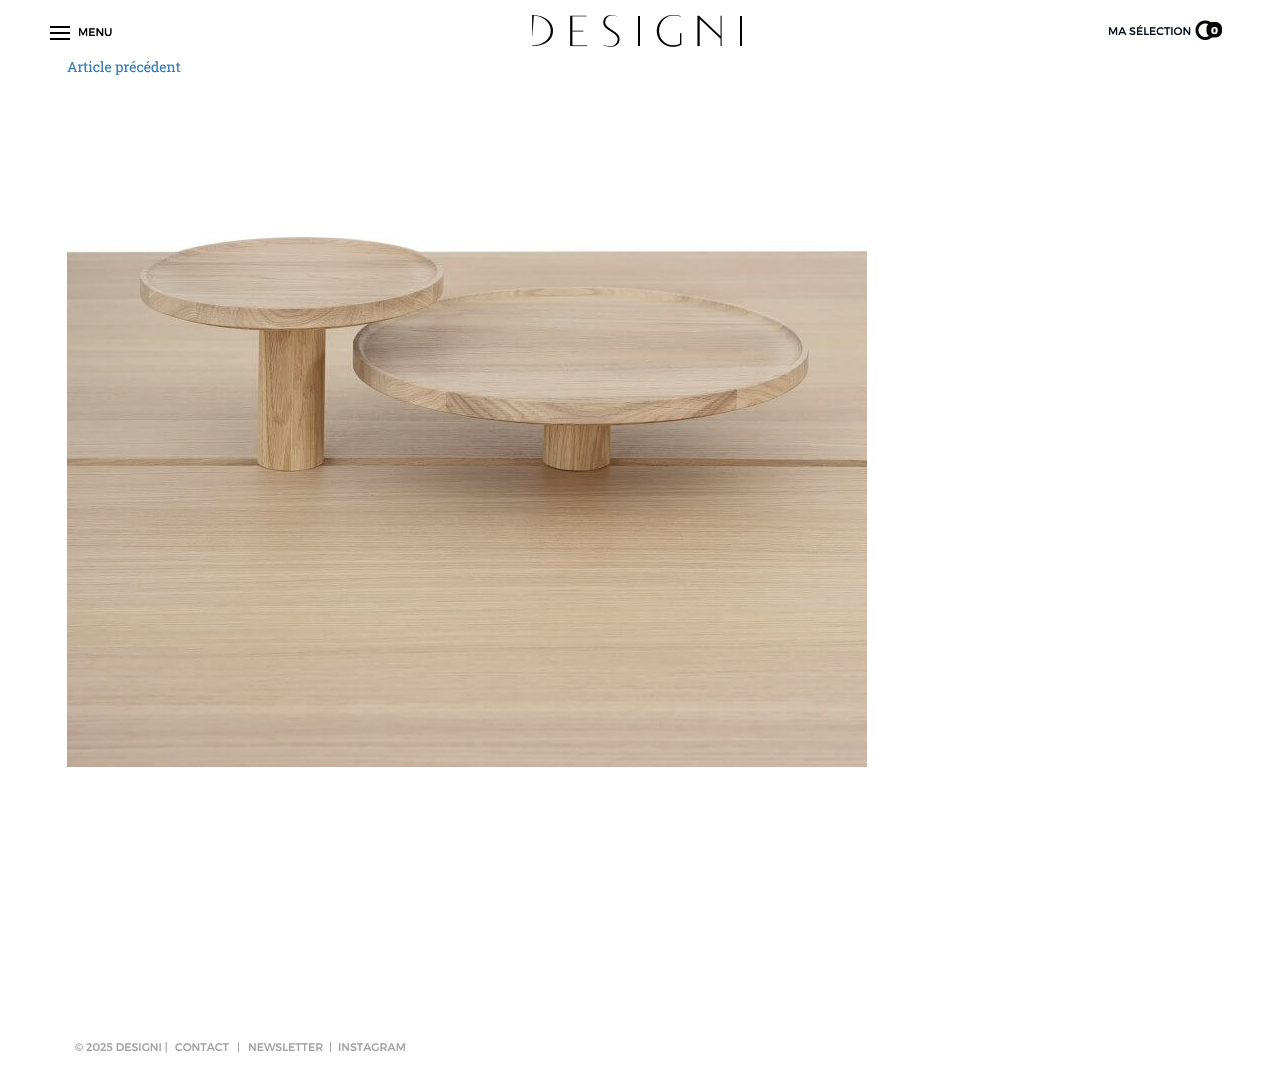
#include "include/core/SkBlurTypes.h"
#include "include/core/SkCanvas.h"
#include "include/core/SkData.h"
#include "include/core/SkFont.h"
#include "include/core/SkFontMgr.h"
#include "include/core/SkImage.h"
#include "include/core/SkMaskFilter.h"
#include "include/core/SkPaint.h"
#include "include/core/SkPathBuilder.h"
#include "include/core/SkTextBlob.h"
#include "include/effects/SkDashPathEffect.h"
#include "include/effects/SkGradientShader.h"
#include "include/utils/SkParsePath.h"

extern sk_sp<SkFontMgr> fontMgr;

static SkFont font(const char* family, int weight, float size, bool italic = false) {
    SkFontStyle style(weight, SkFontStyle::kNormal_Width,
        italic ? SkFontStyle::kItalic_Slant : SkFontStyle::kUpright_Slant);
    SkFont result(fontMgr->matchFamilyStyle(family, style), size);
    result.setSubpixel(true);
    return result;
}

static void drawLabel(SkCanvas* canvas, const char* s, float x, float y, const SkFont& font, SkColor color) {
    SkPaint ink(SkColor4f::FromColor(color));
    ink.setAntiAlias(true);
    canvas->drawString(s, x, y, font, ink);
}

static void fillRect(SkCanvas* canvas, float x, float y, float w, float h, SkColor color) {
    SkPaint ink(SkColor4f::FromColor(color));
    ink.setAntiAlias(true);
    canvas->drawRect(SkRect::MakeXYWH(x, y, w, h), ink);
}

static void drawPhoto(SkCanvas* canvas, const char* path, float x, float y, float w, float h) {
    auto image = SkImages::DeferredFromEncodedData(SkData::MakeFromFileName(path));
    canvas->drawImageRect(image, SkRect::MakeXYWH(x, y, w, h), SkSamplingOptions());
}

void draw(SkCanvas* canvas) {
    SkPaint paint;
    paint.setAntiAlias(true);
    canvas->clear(0xFFFFFFFF);
    fillRect(canvas, 50, 26, 20, 2, 0xFF000000);
    fillRect(canvas, 50, 32, 20, 2, 0xFF000000);
    fillRect(canvas, 50, 38, 20, 2, 0xFF000000);
    SkFont font1 = font("Montserrat", 400, 11);
    drawLabel(canvas, "MENU", 78, 36, font1, 0xFF000000);
    drawPhoto(canvas, "assets/img1.png", 532, 15, 210, 32);
    drawLabel(canvas, "MA SÉLECTION", 1108, 35, font1, 0xFF040E19);
    drawPhoto(canvas, "assets/img2.png", 1195, 20, 27, 20);
    SkFont font2 = font("Montserrat", 700, 10);
    drawLabel(canvas, "0", 1211, 34, font2, 0xFFFFFFFF);
    SkFont font3 = font("Roboto Slab", 400, 14);
    drawLabel(canvas, "Article précédent", 67, 72, font3, 0xFF337AB7);
    drawPhoto(canvas, "assets/img3.png", 67, 237, 800, 530);
    drawLabel(canvas, "© 2025 DESIGNI |", 75, 1051, font1, 0xFFA1A1A1);
    drawLabel(canvas, "CONTACT", 175, 1051, font1, 0xFFA1A1A1);
    drawLabel(canvas, "|", 237, 1051, font1, 0xFFA1A1A1);
    drawLabel(canvas, "NEWSLETTER", 248, 1051, font1, 0xFFA1A1A1);
    drawLabel(canvas, "|", 329, 1051, font1, 0xFFA1A1A1);
    drawLabel(canvas, "INSTAGRAM", 338, 1051, font1, 0xFFA1A1A1);
}
